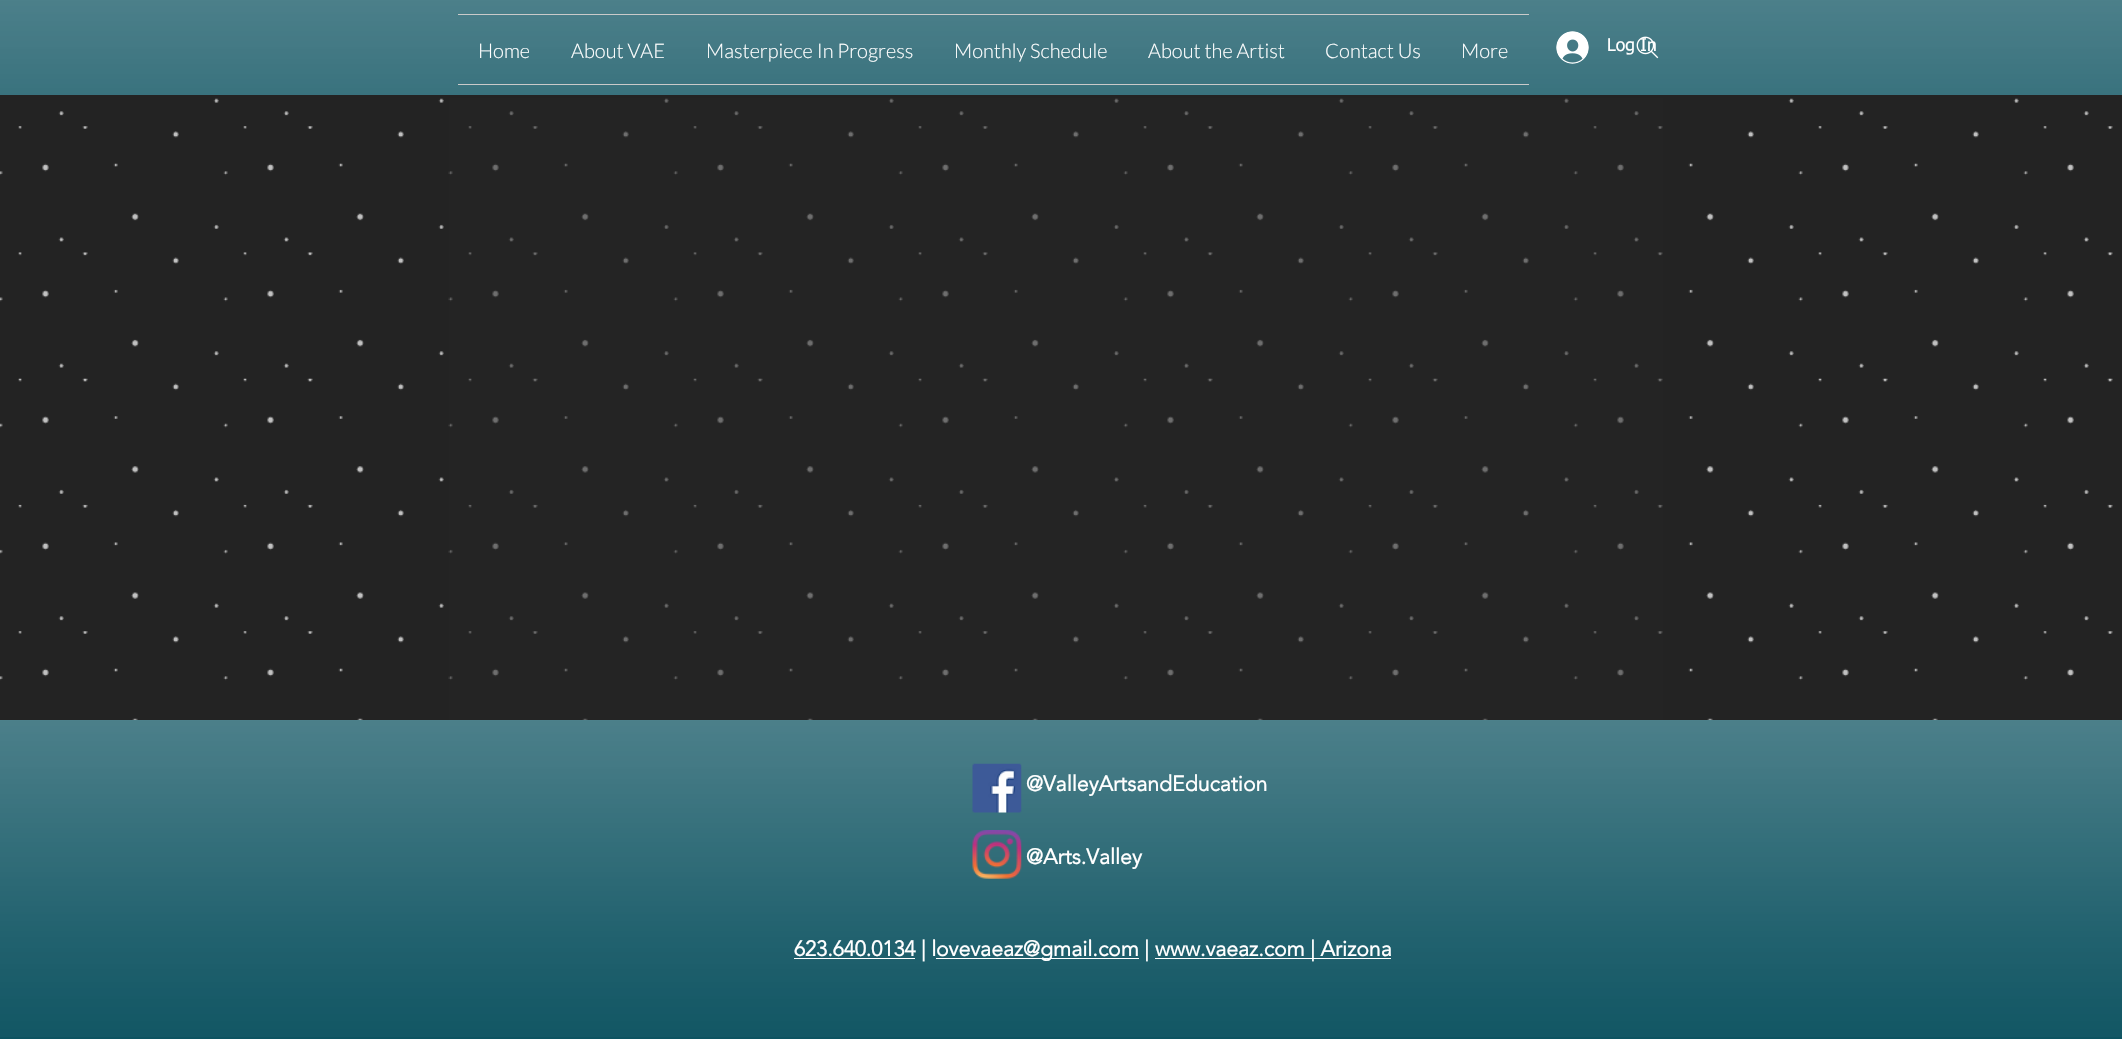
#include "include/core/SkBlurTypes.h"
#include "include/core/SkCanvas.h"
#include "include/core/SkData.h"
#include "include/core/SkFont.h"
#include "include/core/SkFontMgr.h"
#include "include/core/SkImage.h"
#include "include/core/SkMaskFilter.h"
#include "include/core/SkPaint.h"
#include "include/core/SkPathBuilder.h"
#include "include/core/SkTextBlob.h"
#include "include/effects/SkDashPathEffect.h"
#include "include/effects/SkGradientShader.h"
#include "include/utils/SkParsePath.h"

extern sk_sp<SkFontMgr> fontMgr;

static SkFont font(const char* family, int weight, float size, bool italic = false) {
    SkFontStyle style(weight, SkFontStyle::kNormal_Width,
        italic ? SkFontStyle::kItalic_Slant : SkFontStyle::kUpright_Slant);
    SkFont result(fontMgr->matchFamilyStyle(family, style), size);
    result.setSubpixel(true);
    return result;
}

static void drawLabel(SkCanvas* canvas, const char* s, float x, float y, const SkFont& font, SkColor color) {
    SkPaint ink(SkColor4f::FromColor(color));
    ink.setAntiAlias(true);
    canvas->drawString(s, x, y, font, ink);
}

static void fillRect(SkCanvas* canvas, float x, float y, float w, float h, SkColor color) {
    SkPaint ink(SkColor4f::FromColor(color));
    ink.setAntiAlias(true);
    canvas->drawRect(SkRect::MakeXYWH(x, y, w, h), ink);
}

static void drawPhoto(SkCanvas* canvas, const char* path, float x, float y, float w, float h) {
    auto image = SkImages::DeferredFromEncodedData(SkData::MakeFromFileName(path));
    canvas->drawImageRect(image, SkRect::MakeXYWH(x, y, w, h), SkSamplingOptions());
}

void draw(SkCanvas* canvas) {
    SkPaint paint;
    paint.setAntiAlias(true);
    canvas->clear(0xFF232323);
    fillRect(canvas, 0, 0, 2122, 95, 0xFF0D5361);
    drawPhoto(canvas, "assets/img1.png", 0, 0, 2122, 95);
    SkFont font1 = font("tahoma", 400, 17.5f);
    drawLabel(canvas, "Log In", 1607, 51, font1, 0xFFFFFFFF);
    drawPhoto(canvas, "assets/img2.png", 1636, 36, 23, 23);
    fillRect(canvas, 458, 14, 1071, 1, 0xFFCACACA);
    fillRect(canvas, 458, 84, 1071, 1, 0xFFCACACA);
    SkFont font2 = font("Lato", 300, 20);
    drawLabel(canvas, "Home", 478, 58, font2, 0xFFFFFFFF);
    drawLabel(canvas, "About VAE", 571, 58, font2, 0xFFFFFFFF);
    drawLabel(canvas, "Masterpiece In Progress", 706, 58, font2, 0xFFFFFFFF);
    drawLabel(canvas, "Monthly Schedule", 954, 58, font2, 0xFFFFFFFF);
    drawLabel(canvas, "About the Artist", 1148, 58, font2, 0xFFFFFFFF);
    drawLabel(canvas, "Contact Us", 1325, 58, font2, 0xFFFFFFFF);
    drawLabel(canvas, "More", 1461, 58, font2, 0xFFFFFFFF);
    drawPhoto(canvas, "assets/img3.png", 1556, 31, 33, 33);
    drawPhoto(canvas, "assets/img7.png", 0, 98, 2113, 622);
    fillRect(canvas, 449, 98, 1214, 622, 0x87232323);
    fillRect(canvas, 0, 720, 2122, 319, 0xFF0D5361);
    drawPhoto(canvas, "assets/img4.png", 0, 720, 2122, 317);
    drawPhoto(canvas, "assets/img5.png", 972, 763, 50, 50);
    drawPhoto(canvas, "assets/img6.png", 972, 830, 50, 49);
    SkFont font3 = font("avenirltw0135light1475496", 700, 21.25f);
    drawLabel(canvas, "@ValleyArtsandEducation", 1026, 791, font3, 0xFFFFFFFF);
    drawLabel(canvas, "@Arts.Valley", 1026, 864, font3, 0xFFFFFFFF);
    fillRect(canvas, 794, 958, 121, 1, 0xFFFFFFFF);
    drawLabel(canvas, "623.640.0134 | l", 794, 956, font3, 0xFFFFFFFF);
    fillRect(canvas, 936, 958, 203, 1, 0xFFFFFFFF);
    drawLabel(canvas, "ovevaeaz@gmail.com |", 936, 956, font3, 0xFFFFFFFF);
    fillRect(canvas, 1155, 958, 236, 1, 0xFFFFFFFF);
    drawLabel(canvas, "www.vaeaz.com | Arizona", 1155, 956, font3, 0xFFFFFFFF);
}
